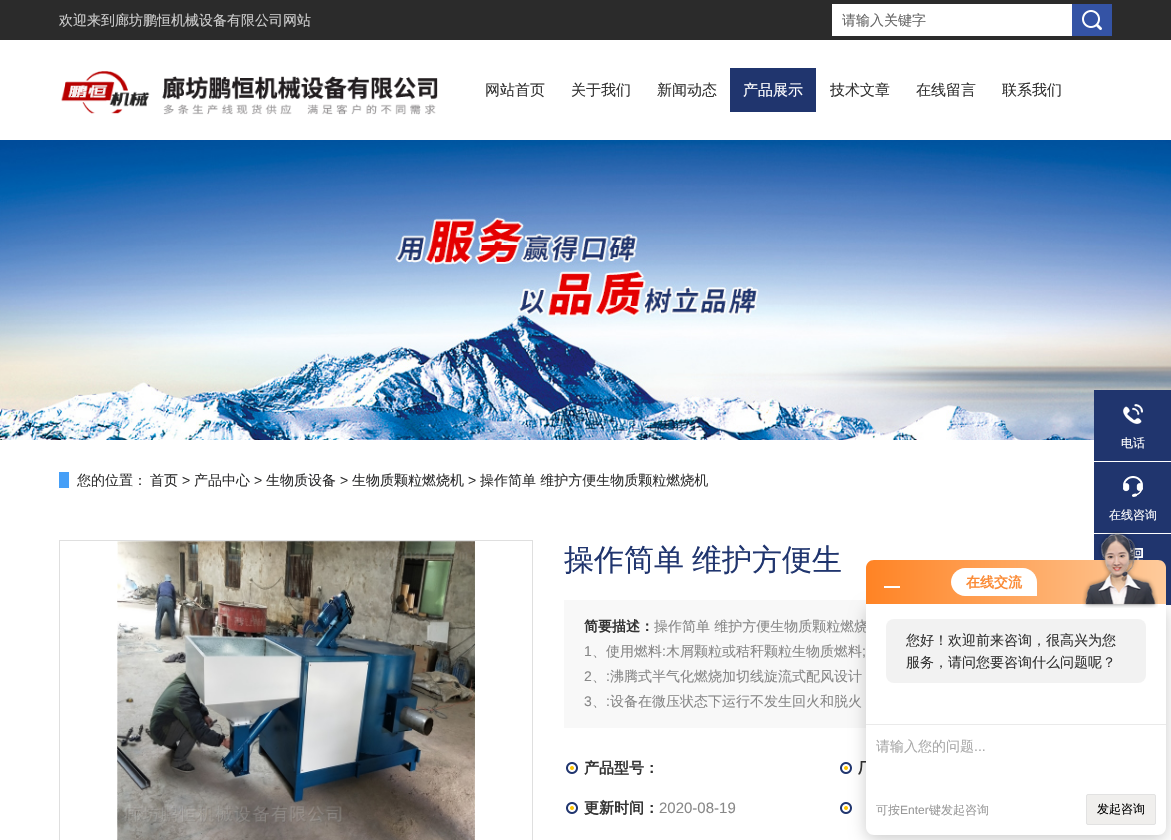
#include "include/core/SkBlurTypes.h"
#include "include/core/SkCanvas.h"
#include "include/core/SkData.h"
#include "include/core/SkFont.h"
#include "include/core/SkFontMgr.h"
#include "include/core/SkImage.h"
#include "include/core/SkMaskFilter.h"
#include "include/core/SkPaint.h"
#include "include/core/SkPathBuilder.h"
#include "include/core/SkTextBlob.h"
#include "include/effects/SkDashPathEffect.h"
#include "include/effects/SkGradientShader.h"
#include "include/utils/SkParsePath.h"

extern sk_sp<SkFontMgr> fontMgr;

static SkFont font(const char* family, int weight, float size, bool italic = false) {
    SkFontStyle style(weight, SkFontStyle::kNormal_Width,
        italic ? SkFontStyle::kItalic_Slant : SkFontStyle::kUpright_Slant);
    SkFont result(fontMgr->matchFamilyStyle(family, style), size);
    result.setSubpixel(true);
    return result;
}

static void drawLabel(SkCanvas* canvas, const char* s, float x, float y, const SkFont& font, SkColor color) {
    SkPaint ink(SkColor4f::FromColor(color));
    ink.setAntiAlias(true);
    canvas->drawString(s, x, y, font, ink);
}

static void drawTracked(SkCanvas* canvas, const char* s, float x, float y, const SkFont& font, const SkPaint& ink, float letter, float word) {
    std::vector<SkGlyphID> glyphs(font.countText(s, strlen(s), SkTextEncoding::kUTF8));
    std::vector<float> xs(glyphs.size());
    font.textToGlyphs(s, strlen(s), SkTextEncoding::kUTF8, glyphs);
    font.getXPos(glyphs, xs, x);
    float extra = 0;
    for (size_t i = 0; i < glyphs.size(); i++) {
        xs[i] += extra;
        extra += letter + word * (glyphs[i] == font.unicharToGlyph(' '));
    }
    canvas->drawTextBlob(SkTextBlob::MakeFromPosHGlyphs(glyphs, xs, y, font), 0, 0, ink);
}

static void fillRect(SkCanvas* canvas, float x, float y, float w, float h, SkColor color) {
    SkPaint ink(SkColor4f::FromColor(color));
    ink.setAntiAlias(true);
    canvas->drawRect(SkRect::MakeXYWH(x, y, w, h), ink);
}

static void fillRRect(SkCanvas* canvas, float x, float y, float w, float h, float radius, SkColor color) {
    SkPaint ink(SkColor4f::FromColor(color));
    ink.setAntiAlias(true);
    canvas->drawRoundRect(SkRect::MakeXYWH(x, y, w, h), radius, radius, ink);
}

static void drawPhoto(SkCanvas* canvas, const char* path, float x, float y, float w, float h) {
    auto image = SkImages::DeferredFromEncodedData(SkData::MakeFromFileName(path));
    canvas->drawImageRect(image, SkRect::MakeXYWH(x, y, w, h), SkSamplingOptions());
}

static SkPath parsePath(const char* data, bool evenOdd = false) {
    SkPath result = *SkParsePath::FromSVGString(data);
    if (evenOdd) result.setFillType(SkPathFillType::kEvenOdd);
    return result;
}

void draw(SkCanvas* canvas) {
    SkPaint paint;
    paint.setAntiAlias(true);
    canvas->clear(0xFFFFFFFF);
    fillRect(canvas, 0, 0, 1171, 40, 0xFF2B2B2B);
    SkFont font1 = font("WenQuanYi Zen Hei", 500, 14);
    drawLabel(canvas, "欢迎来到廊坊鹏恒机械设备有限公司网站", 59, 25, font1, 0xFFCCCCCC);
    fillRect(canvas, 832, 4, 240, 32, 0xFFFFFFFF);
    drawLabel(canvas, "请输入关键字", 842, 25, font1, 0xFF666666);
    fillRect(canvas, 1072, 4, 40, 32, 0xFF3453A5);
    drawPhoto(canvas, "assets/img1.png", 1082, 10, 20, 20);
    drawPhoto(canvas, "assets/img2.png", 61, 71, 377, 44);
    SkFont font2 = font("WenQuanYi Zen Hei", 500, 15);
    drawLabel(canvas, "网站首页", 485, 95, font2, 0xFF333333);
    drawLabel(canvas, "关于我们", 571, 95, font2, 0xFF333333);
    drawLabel(canvas, "新闻动态", 657, 95, font2, 0xFF333333);
    fillRect(canvas, 730, 68, 86, 44, 0xFF20356E);
    drawLabel(canvas, "产品展示", 743, 95, font2, 0xFFFFFFFF);
    drawLabel(canvas, "技术文章", 830, 95, font2, 0xFF333333);
    drawLabel(canvas, "在线留言", 916, 95, font2, 0xFF333333);
    drawLabel(canvas, "联系我们", 1002, 95, font2, 0xFF333333);
    drawPhoto(canvas, "assets/img3.png", 0, 140, 1171, 300);
    drawLabel(canvas, "您的位置：", 77, 485, font1, 0xFF333333);
    fillRect(canvas, 59, 472, 10, 16, 0xFF469FF7);
    drawLabel(canvas, "首页", 150, 485, font1, 0xFF2D2D2E);
    SkFont font3 = font("Liberation Sans", 400, 14);
    drawLabel(canvas, ">", 182, 485, font3, 0xFF333333);
    drawLabel(canvas, "产品中心", 194, 485, font1, 0xFF2D2D2E);
    drawLabel(canvas, ">", 254, 485, font3, 0xFF333333);
    drawLabel(canvas, "生物质设备", 266, 485, font1, 0xFF2D2D2E);
    drawLabel(canvas, ">", 340, 485, font3, 0xFF333333);
    drawLabel(canvas, "生物质颗粒燃烧机", 352, 485, font1, 0xFF2D2D2E);
    drawLabel(canvas, ">", 468, 485, font3, 0xFF333333);
    drawLabel(canvas, "操作简单 维护方便生物质颗粒燃烧机", 480, 485, font1, 0xFF333333);
    paint.setStroke(true);
    paint.setStrokeWidth(1);
    paint.setColor(0xFFDFDFDF);
    canvas->drawRect(SkRect::MakeXYWH(59.5f, 540.5f, 473, 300), paint);
    drawPhoto(canvas, "assets/img4.png", 117, 541, 358, 299);
    SkFont font4 = font("WenQuanYi Zen Hei", 500, 30);
    paint.setStroke(false);
    paint.setColor(0xFF20356E);
    drawTracked(canvas, "操作简单 维护方便生", 564, 570, font4, paint, 0, -1);
    fillRect(canvas, 564, 600, 302, 128, 0xFFF8F8F8);
    SkFont font5 = font("WenQuanYi Zen Hei", 700, 14);
    drawLabel(canvas, "简要描述：", 584, 631, font5, 0xFF333333);
    drawLabel(canvas, "操作简单 维护方便生物质颗粒燃烧", 654, 631, font1, 0xFF888888);
    drawLabel(canvas, "1", 584, 656, font3, 0xFF888888);
    drawLabel(canvas, "、使用燃料", 592, 656, font1, 0xFF888888);
    drawLabel(canvas, ":", 662, 656, font3, 0xFF888888);
    drawLabel(canvas, "木屑颗粒或秸秆颗粒生物质燃料", 666, 656, font1, 0xFF888888);
    drawLabel(canvas, ";", 862, 656, font3, 0xFF888888);
    drawLabel(canvas, "2", 584, 681, font3, 0xFF888888);
    drawLabel(canvas, "、", 592, 681, font1, 0xFF888888);
    drawLabel(canvas, ":", 606, 681, font3, 0xFF888888);
    drawLabel(canvas, "沸腾式半气化燃烧加切线旋流式配风设计", 610, 681, font1, 0xFF888888);
    drawLabel(canvas, "3", 584, 706, font3, 0xFF888888);
    drawLabel(canvas, "、", 592, 706, font1, 0xFF888888);
    drawLabel(canvas, ":", 606, 706, font3, 0xFF888888);
    drawLabel(canvas, "设备在微压状态下运行不发生回火和脱火", 610, 706, font1, 0xFF888888);
    drawPhoto(canvas, "assets/img5.png", 566, 762, 12, 12);
    SkFont font6 = font("WenQuanYi Zen Hei", 700, 15);
    drawLabel(canvas, "产品型号：", 584, 773, font6, 0xFF333333);
    drawPhoto(canvas, "assets/img5.png", 840, 762, 12, 12);
    drawLabel(canvas, "厂", 858, 773, font6, 0xFF333333);
    drawPhoto(canvas, "assets/img5.png", 566, 802, 12, 12);
    drawLabel(canvas, "更新时间：", 584, 813, font6, 0xFF333333);
    SkFont font7 = font("Liberation Sans", 400, 15);
    drawLabel(canvas, "2020-08-19", 659, 813, font7, 0xFF888888);
    drawPhoto(canvas, "assets/img5.png", 840, 802, 12, 12);
    fillRect(canvas, 1094, 390, 77, 71, 0xFF20356E);
    drawPhoto(canvas, "assets/img6.png", 1123, 404, 20, 20);
    SkFont font8 = font("WenQuanYi Zen Hei", 500, 12);
    drawLabel(canvas, "电话", 1121, 447, font8, 0xFFFFFFFF);
    fillRect(canvas, 1094, 462, 77, 71, 0xFF20356E);
    drawPhoto(canvas, "assets/img7.png", 1123, 476, 20, 21);
    drawLabel(canvas, "在线咨询", 1109, 519, font8, 0xFFFFFFFF);
    fillRect(canvas, 1094, 534, 77, 71, 0xFF20356E);
    drawPhoto(canvas, "assets/img8.png", 1128, 548, 15, 12);
    paint.setColor(0x33000000);
    paint.setMaskFilter(SkMaskFilter::MakeBlur(kNormal_SkBlurStyle, 8));
    canvas->drawRoundRect(SkRect::MakeXYWH(866, 608, 300, 231), 8, 8, paint);
    paint.setMaskFilter(nullptr);
    {
        const SkColor colors[] = {0xFFFF8324, 0xFFFECB9C};
        const float stops[] = {0, 1};
        const SkPoint ends[] = {{866, 582}, {1166, 582}};
        paint.setShader(SkGradientShader::MakeLinear(ends, colors, stops, 2, SkTileMode::kClamp));
        paint.setAlpha(255);
    }
    canvas->drawPath(parsePath("M874 560H1158C1162.5 560 1166 563.5 1166 568V604H866V568C866 563.5 869.5 560 874 560Z"), paint);
    fillRect(canvas, 884, 586, 16, 2, 0xFFFFFFFF);
    paint.setShader(nullptr);
    paint.setColor(0xFFFFFFFF);
    canvas->drawPath(parsePath("M965 568H1023C1030.5 568 1037 574.5 1037 582V596H965C957.5 596 951 589.5 951 582C951 574.5 957.5 568 965 568Z"), paint);
    drawLabel(canvas, "在线交流", 966, 587, font5, 0xFFFB8B36);
    canvas->drawPath(parsePath("M866 604H1166V827C1166 831.5 1162.5 835 1158 835H874C869.5 835 866 831.5 866 827Z"), paint);
    drawPhoto(canvas, "assets/img9.png", 1082, 531, 76, 77);
    fillRRect(canvas, 886, 619, 260, 64, 8, 0xFFF2F2F2);
    drawLabel(canvas, "您好！欢迎前来咨询，很高兴为您", 906, 645, font1, 0xFF333333);
    drawLabel(canvas, "服务，请问您要咨询什么问题呢？", 906, 667, font1, 0xFF333333);
    fillRect(canvas, 866, 724, 300, 1, 0xFFEAEAEA);
    drawLabel(canvas, "请输入您的问题", 876, 751, font1, 0xFFAAAAAA);
    drawLabel(canvas, "...", 974, 751, font3, 0xFFAAAAAA);
    drawLabel(canvas, "可按", 876, 814, font8, 0xFF999999);
    SkFont font9 = font("Liberation Sans", 400, 12);
    drawLabel(canvas, "Enter", 900, 814, font9, 0xFF999999);
    drawLabel(canvas, "键发起咨询", 929, 814, font8, 0xFF999999);
    paint.setColor(0xFFF0EFED);
    canvas->drawRoundRect(SkRect::MakeXYWH(1086.5f, 794.5f, 69, 30), 1.5f, 1.5f, paint);
    paint.setStroke(true);
    paint.setColor(0xFFE2E2E2);
    canvas->drawRoundRect(SkRect::MakeXYWH(1086.5f, 794.5f, 69, 30), 1.5f, 1.5f, paint);
    drawLabel(canvas, "发起咨询", 1097, 813, font8, 0xFF000000);
}
